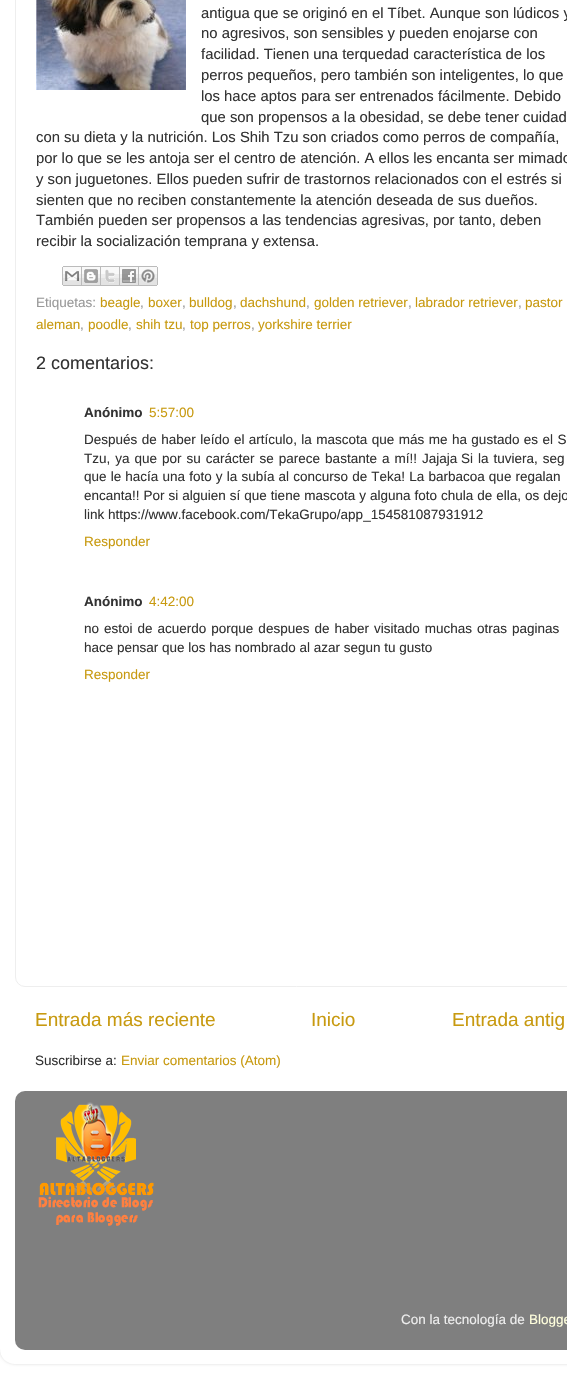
#include "include/core/SkBlurTypes.h"
#include "include/core/SkCanvas.h"
#include "include/core/SkData.h"
#include "include/core/SkFont.h"
#include "include/core/SkFontMgr.h"
#include "include/core/SkImage.h"
#include "include/core/SkMaskFilter.h"
#include "include/core/SkPaint.h"
#include "include/core/SkPathBuilder.h"
#include "include/core/SkTextBlob.h"
#include "include/effects/SkDashPathEffect.h"
#include "include/effects/SkGradientShader.h"
#include "include/utils/SkParsePath.h"

extern sk_sp<SkFontMgr> fontMgr;

static SkFont font(const char* family, int weight, float size, bool italic = false) {
    SkFontStyle style(weight, SkFontStyle::kNormal_Width,
        italic ? SkFontStyle::kItalic_Slant : SkFontStyle::kUpright_Slant);
    SkFont result(fontMgr->matchFamilyStyle(family, style), size);
    result.setSubpixel(true);
    return result;
}

static void drawLabel(SkCanvas* canvas, const char* s, float x, float y, const SkFont& font, SkColor color) {
    SkPaint ink(SkColor4f::FromColor(color));
    ink.setAntiAlias(true);
    canvas->drawString(s, x, y, font, ink);
}

static void drawTracked(SkCanvas* canvas, const char* s, float x, float y, const SkFont& font, const SkPaint& ink, float letter, float word) {
    std::vector<SkGlyphID> glyphs(font.countText(s, strlen(s), SkTextEncoding::kUTF8));
    std::vector<float> xs(glyphs.size());
    font.textToGlyphs(s, strlen(s), SkTextEncoding::kUTF8, glyphs);
    font.getXPos(glyphs, xs, x);
    float extra = 0;
    for (size_t i = 0; i < glyphs.size(); i++) {
        xs[i] += extra;
        extra += letter + word * (glyphs[i] == font.unicharToGlyph(' '));
    }
    canvas->drawTextBlob(SkTextBlob::MakeFromPosHGlyphs(glyphs, xs, y, font), 0, 0, ink);
}

static void drawPhoto(SkCanvas* canvas, const char* path, float x, float y, float w, float h) {
    auto image = SkImages::DeferredFromEncodedData(SkData::MakeFromFileName(path));
    canvas->drawImageRect(image, SkRect::MakeXYWH(x, y, w, h), SkSamplingOptions());
}

static SkPath parsePath(const char* data, bool evenOdd = false) {
    SkPath result = *SkParsePath::FromSVGString(data);
    if (evenOdd) result.setFillType(SkPathFillType::kEvenOdd);
    return result;
}

void draw(SkCanvas* canvas) {
    SkPaint paint;
    paint.setAntiAlias(true);
    canvas->clear(0xFFFFFFFF);
    canvas->save();
    canvas->clipPath(parsePath("M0 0H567V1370H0ZM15-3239H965C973.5-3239 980-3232.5 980-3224V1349C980 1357.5 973.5 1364 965 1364H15C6.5 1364 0 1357.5 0 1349V-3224C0-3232.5 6.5-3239 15-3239Z", true), true);
    paint.setColor(0x26000000);
    paint.setMaskFilter(SkMaskFilter::MakeBlur(kNormal_SkBlurStyle, 1.5f));
    canvas->drawRoundRect(SkRect::MakeXYWH(0, -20, 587, 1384), 15, 15, paint);
    paint.setMaskFilter(nullptr);
    canvas->restore();
    paint.setStroke(true);
    paint.setStrokeWidth(1);
    paint.setColor(0xFFEEEEEE);
    canvas->drawRoundRect(SkRect::MakeXYWH(15.5f, -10.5f, 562, 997), 9.5f, 9.5f, paint);
    drawPhoto(canvas, "assets/img1.png", 36, 0, 150, 90);
    SkFont font1 = font("Liberation Sans", 400, 14.85f);
    drawLabel(canvas, "antigua que se originó en el Tíbet. Aunque son lúdicos y", 201, 18, font1, 0xFF333333);
    drawLabel(canvas, "no agresivos, son sensibles y pueden enojarse con", 201, 38, font1, 0xFF333333);
    drawLabel(canvas, "facilidad. Tienen una terquedad característica de los", 201, 59, font1, 0xFF333333);
    drawLabel(canvas, "perros pequeños, pero también son inteligentes, lo que", 201, 80, font1, 0xFF333333);
    drawLabel(canvas, "los hace aptos para ser entrenados fácilmente. Debido", 201, 101, font1, 0xFF333333);
    drawLabel(canvas, "que son propensos a la obesidad, se debe tener cuidad", 201, 122, font1, 0xFF333333);
    drawLabel(canvas, "con su dieta y la nutrición. Los Shih Tzu son criados como perros de compañía,", 36, 142, font1, 0xFF333333);
    drawLabel(canvas, "por lo que se les antoja ser el centro de atención. A ellos les encanta ser mimado", 36, 163, font1, 0xFF333333);
    drawLabel(canvas, "y son juguetones. Ellos pueden sufrir de trastornos relacionados con el estrés si", 36, 184, font1, 0xFF333333);
    drawLabel(canvas, "sienten que no reciben constantemente la atención deseada de sus dueños.", 36, 205, font1, 0xFF333333);
    drawLabel(canvas, "También pueden ser propensos a las tendencias agresivas, por tanto, deben", 36, 225, font1, 0xFF333333);
    drawLabel(canvas, "recibir la socialización temprana y extensa.", 36, 246, font1, 0xFF333333);
    drawPhoto(canvas, "assets/img2.png", 62, 266, 20, 20);
    drawPhoto(canvas, "assets/img3.png", 82, 266, 19, 20);
    drawPhoto(canvas, "assets/img4.png", 101, 266, 19, 20);
    drawPhoto(canvas, "assets/img5.png", 120, 266, 19, 20);
    drawPhoto(canvas, "assets/img6.png", 139, 266, 19, 20);
    SkFont font2 = font("Liberation Sans", 400, 13.5f);
    drawLabel(canvas, "Etiquetas:", 36, 307, font2, 0xFF999999);
    drawLabel(canvas, "beagle", 100, 307, font2, 0xFFC89A10);
    drawLabel(canvas, ",", 140, 307, font2, 0xFF999999);
    drawLabel(canvas, "boxer", 148, 307, font2, 0xFFC89A10);
    drawLabel(canvas, ",", 182, 307, font2, 0xFF999999);
    drawLabel(canvas, "bulldog", 189, 307, font2, 0xFFC89A10);
    drawLabel(canvas, ",", 233, 307, font2, 0xFF999999);
    drawLabel(canvas, "dachshund", 240, 307, font2, 0xFFC89A10);
    drawLabel(canvas, ",", 306, 307, font2, 0xFF999999);
    drawLabel(canvas, "golden retriever", 314, 307, font2, 0xFFC89A10);
    drawLabel(canvas, ",", 408, 307, font2, 0xFF999999);
    drawLabel(canvas, "labrador retriever", 415, 307, font2, 0xFFC89A10);
    drawLabel(canvas, ",", 518, 307, font2, 0xFF999999);
    drawLabel(canvas, "pastor", 525, 307, font2, 0xFFC89A10);
    drawLabel(canvas, "aleman", 36, 329, font2, 0xFFC89A10);
    drawLabel(canvas, ",", 80, 329, font2, 0xFF999999);
    drawLabel(canvas, "poodle", 88, 329, font2, 0xFFC89A10);
    drawLabel(canvas, ",", 128, 329, font2, 0xFF999999);
    drawLabel(canvas, "shih tzu", 136, 329, font2, 0xFFC89A10);
    drawLabel(canvas, ",", 182, 329, font2, 0xFF999999);
    drawLabel(canvas, "top perros", 190, 329, font2, 0xFFC89A10);
    drawLabel(canvas, ",", 251, 329, font2, 0xFF999999);
    drawLabel(canvas, "yorkshire terrier", 258, 329, font2, 0xFFC89A10);
    SkFont font3 = font("Liberation Sans", 400, 18);
    drawLabel(canvas, "2 comentarios:", 36, 369, font3, 0xFF333333);
    SkFont font4 = font("Liberation Sans", 700, 13.5f);
    drawLabel(canvas, "Anónimo", 84, 417, font4, 0xFF333333);
    drawLabel(canvas, "5:57:00", 149, 417, font2, 0xFFC89A10);
    paint.setStroke(false);
    paint.setColor(0xFF333333);
    drawTracked(canvas, "Después de haber leído el artículo, la mascota que más me ha gustado es el S", 84, 444, font2, paint, 0, 0.7f);
    drawTracked(canvas, "Tzu, ya que por su carácter se parece bastante a mí!! Jajaja", 84, 463, font2, paint, 0, 1.25f);
    drawTracked(canvas, "Si la tuviera, seg", 461, 463, font2, paint, 0, 1.25f);
    drawTracked(canvas, "que le hacía una foto y la subía al concurso de Teka! La barbacoa que regalan", 84, 481, font2, paint, 0, 0.4f);
    drawTracked(canvas, "encanta!! Por si alguien sí que tiene mascota y alguna foto chula de ella, os dejo", 84, 500, font2, paint, 0, 0.25f);
    drawLabel(canvas, "link https://www.facebook.com/TekaGrupo/app_154581087931912", 84, 519, font2, 0xFF333333);
    drawLabel(canvas, "Responder", 84, 546, font2, 0xFFC89A10);
    drawLabel(canvas, "Anónimo", 84, 606, font4, 0xFF333333);
    drawLabel(canvas, "4:42:00", 149, 606, font2, 0xFFC89A10);
    drawTracked(canvas, "no estoi de acuerdo porque despues de haber visitado muchas otras paginas", 84, 633, font2, paint, 0, 1.25f);
    drawLabel(canvas, "hace pensar que los has nombrado al azar segun tu gusto", 84, 652, font2, 0xFF333333);
    drawLabel(canvas, "Responder", 84, 679, font2, 0xFFC89A10);
    SkFont font5 = font("Liberation Sans", 400, 19);
    drawLabel(canvas, "Entrada más reciente", 35, 1026, font5, 0xFFC89A10);
    drawLabel(canvas, "Inicio", 311, 1026, font5, 0xFFC89A10);
    drawLabel(canvas, "Entrada antig", 452, 1026, font5, 0xFFC89A10);
    drawLabel(canvas, "Suscribirse a:", 35, 1065, font2, 0xFF333333);
    drawLabel(canvas, "Enviar comentarios (Atom)", 121, 1065, font2, 0xFFC89A10);
    drawPhoto(canvas, "assets/img7.png", 15, 1091, 552, 259);
    drawPhoto(canvas, "assets/img8.png", 38, 1102, 116, 124);
    drawLabel(canvas, "Con la tecnología de", 401, 1324, font2, 0xFFEEEEEE);
    drawLabel(canvas, "Blogge", 529, 1324, font2, 0xFFFFFFDD);
}
